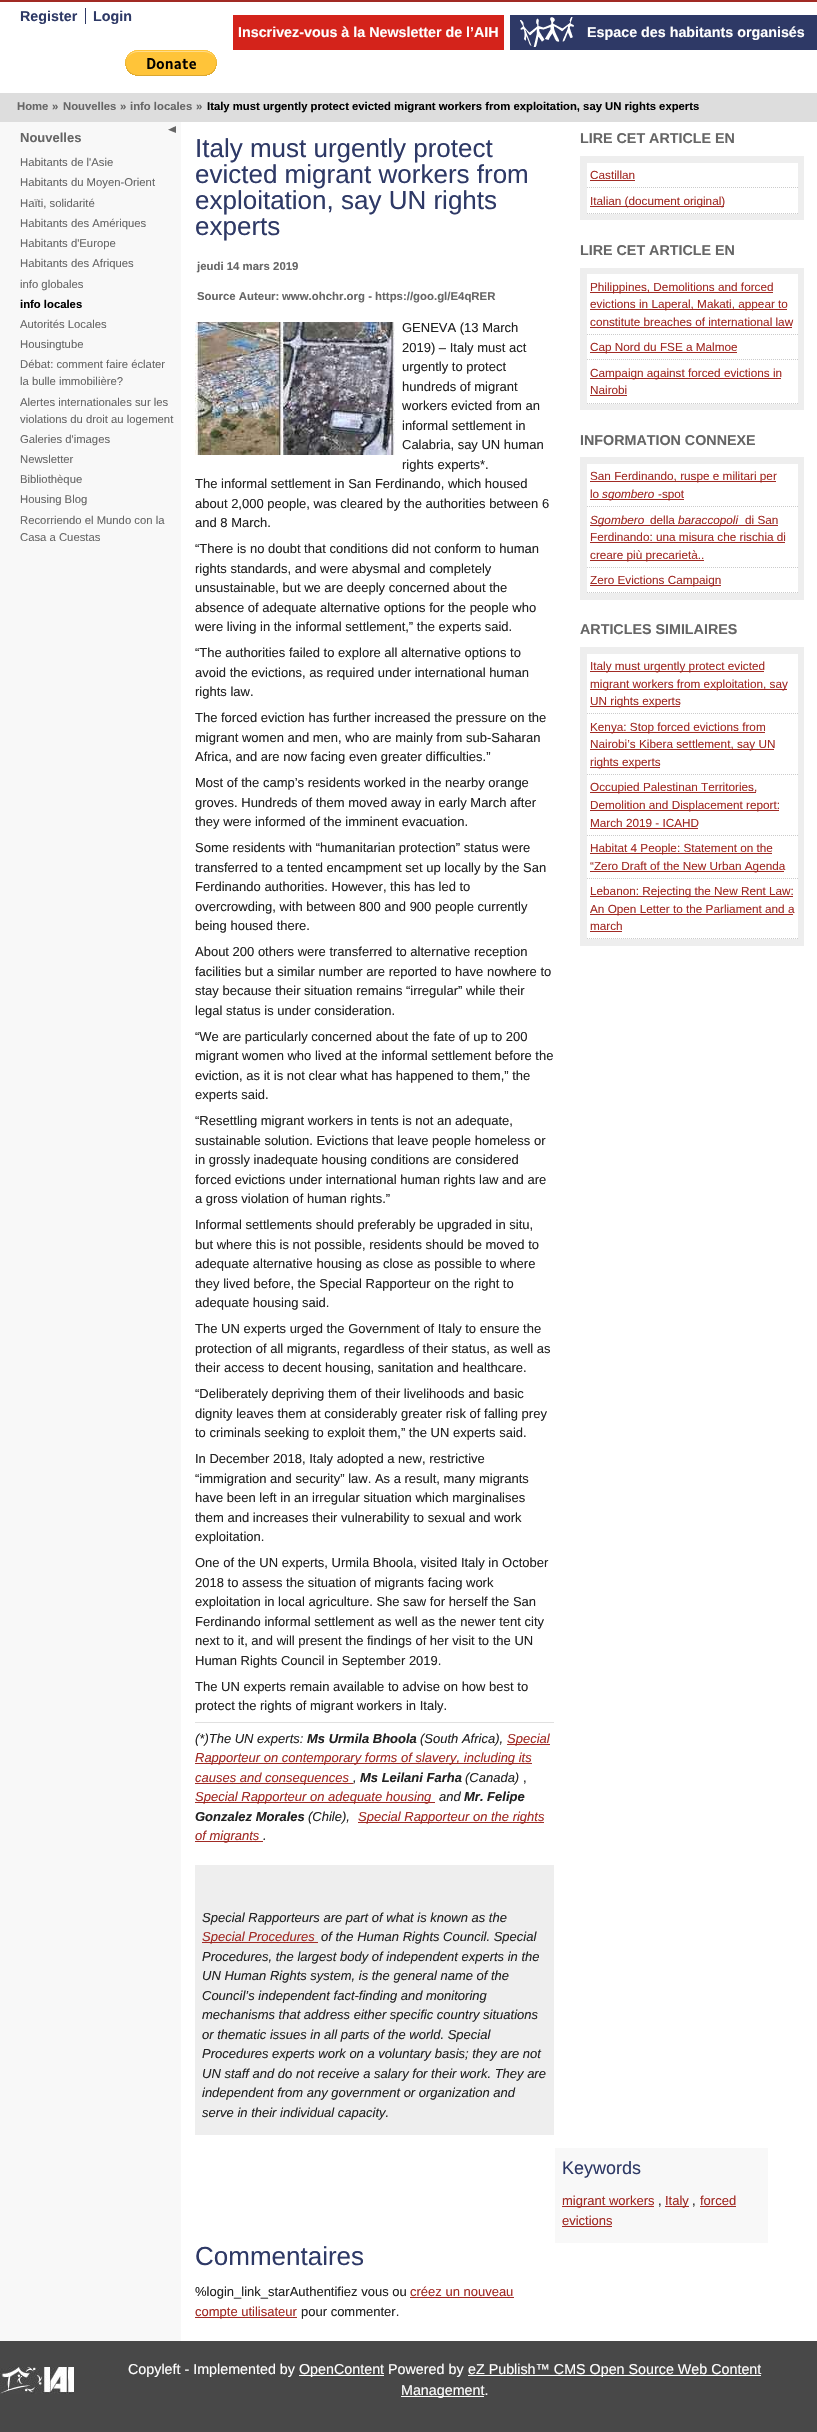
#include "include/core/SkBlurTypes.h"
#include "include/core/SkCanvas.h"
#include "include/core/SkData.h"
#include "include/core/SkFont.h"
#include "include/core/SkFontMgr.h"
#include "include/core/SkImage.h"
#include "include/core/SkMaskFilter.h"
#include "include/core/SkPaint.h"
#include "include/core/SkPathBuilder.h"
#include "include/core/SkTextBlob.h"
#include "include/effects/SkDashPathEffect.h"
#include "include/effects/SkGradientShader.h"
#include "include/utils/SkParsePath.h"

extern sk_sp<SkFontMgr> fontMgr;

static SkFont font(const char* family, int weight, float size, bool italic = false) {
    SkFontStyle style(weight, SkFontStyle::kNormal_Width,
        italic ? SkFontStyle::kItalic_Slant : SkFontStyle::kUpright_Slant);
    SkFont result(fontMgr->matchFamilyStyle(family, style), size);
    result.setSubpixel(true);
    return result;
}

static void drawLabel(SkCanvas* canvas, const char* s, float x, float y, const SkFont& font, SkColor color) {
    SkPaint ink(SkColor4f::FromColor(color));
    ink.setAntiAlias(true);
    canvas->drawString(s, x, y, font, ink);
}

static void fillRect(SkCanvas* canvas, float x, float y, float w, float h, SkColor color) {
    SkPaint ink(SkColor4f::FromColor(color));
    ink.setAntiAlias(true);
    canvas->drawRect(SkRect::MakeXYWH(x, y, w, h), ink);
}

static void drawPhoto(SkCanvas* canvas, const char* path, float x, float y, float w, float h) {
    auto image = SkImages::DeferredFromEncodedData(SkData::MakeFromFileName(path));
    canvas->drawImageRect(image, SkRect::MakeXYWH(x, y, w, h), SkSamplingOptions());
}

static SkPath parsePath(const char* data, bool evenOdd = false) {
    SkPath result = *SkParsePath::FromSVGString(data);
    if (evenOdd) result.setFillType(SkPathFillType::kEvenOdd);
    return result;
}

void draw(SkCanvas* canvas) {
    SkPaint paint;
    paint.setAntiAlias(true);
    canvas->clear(0xFF484848);
    fillRect(canvas, 0, 0, 817, 2, 0xFFA12A24);
    fillRect(canvas, 0, 2, 817, 91, 0xFFFFFFFF);
    SkFont font1 = font("Liberation Sans", 700, 14.3f);
    drawLabel(canvas, "Register", 20, 21, font1, 0xFF2E3966);
    drawLabel(canvas, "Login", 93, 21, font1, 0xFF2E3966);
    fillRect(canvas, 85, 8, 1, 16, 0xFF2E3966);
    fillRect(canvas, 233, 15, 271, 35, 0xFFD4231B);
    drawLabel(canvas, "Inscrivez-vous à la Newsletter de l’AIH", 238, 37, font1, 0xFFFFFFFF);
    fillRect(canvas, 510, 15, 307, 35, 0xFF2E3966);
    drawPhoto(canvas, "assets/img1.png", 520, 17, 54, 30);
    drawLabel(canvas, "Espace des habitants organisés", 587, 37, font1, 0xFFFFFFFF);
    drawPhoto(canvas, "assets/img2.png", 125, 50, 92, 26);
    fillRect(canvas, 0, 93, 817, 29, 0xFFDDDDDD);
    SkFont font2 = font("Liberation Sans", 700, 11.3f);
    drawLabel(canvas, "Home", 17, 110, font2, 0xFF666666);
    drawLabel(canvas, "»", 52, 110, font2, 0xFF666666);
    drawLabel(canvas, "Nouvelles", 63, 110, font2, 0xFF666666);
    drawLabel(canvas, "»", 120, 110, font2, 0xFF666666);
    drawLabel(canvas, "info locales", 130, 110, font2, 0xFF666666);
    drawLabel(canvas, "»", 196, 110, font2, 0xFF666666);
    drawLabel(canvas, "Italy must urgently protect evicted migrant workers from exploitation, say UN rights experts", 207, 110, font2, 0xFF000000);
    fillRect(canvas, 181, 122, 636, 2219, 0xFFFFFFFF);
    fillRect(canvas, 0, 122, 181, 2219, 0xFFF8F8F8);
    drawPhoto(canvas, "assets/img3.png", 168, 126, 8, 7);
    SkFont font3 = font("Liberation Sans", 700, 13);
    drawLabel(canvas, "Nouvelles", 20, 142, font3, 0xFF666666);
    SkFont font4 = font("Liberation Sans", 400, 11.3f);
    drawLabel(canvas, "Habitants de l'Asie", 20, 166, font4, 0xFF666666);
    drawLabel(canvas, "Habitants du Moyen-Orient", 20, 186, font4, 0xFF666666);
    drawLabel(canvas, "Haïti, solidarité", 20, 207, font4, 0xFF666666);
    drawLabel(canvas, "Habitants des Amériques", 20, 227, font4, 0xFF666666);
    drawLabel(canvas, "Habitants d'Europe", 20, 247, font4, 0xFF666666);
    drawLabel(canvas, "Habitants des Afriques", 20, 267, font4, 0xFF666666);
    drawLabel(canvas, "info globales", 20, 288, font4, 0xFF666666);
    drawLabel(canvas, "info locales", 20, 308, font2, 0xFF000000);
    drawLabel(canvas, "Autorités Locales", 20, 328, font4, 0xFF666666);
    drawLabel(canvas, "Housingtube", 20, 348, font4, 0xFF666666);
    drawLabel(canvas, "Débat: comment faire éclater", 20, 368, font4, 0xFF666666);
    drawLabel(canvas, "la bulle immobilière?", 20, 385, font4, 0xFF666666);
    drawLabel(canvas, "Alertes internationales sur les", 20, 406, font4, 0xFF666666);
    drawLabel(canvas, "violations du droit au logement", 20, 423, font4, 0xFF666666);
    drawLabel(canvas, "Galeries d'images", 20, 443, font4, 0xFF666666);
    drawLabel(canvas, "Newsletter", 20, 463, font4, 0xFF666666);
    drawLabel(canvas, "Bibliothèque", 20, 483, font4, 0xFF666666);
    drawLabel(canvas, "Housing Blog", 20, 503, font4, 0xFF666666);
    drawLabel(canvas, "Recorriendo el Mundo con la", 20, 524, font4, 0xFF666666);
    drawLabel(canvas, "Casa a Cuestas", 20, 541, font4, 0xFF666666);
    drawLabel(canvas, "LIRE CET ARTICLE EN", 580, 143, font1, 0xFF666666);
    fillRect(canvas, 580, 156, 224, 64, 0xFFEEEEEE);
    fillRect(canvas, 587, 163, 211, 51, 0xFFFFFFFF);
    paint.setStroke(true);
    paint.setStrokeWidth(1);
    paint.setColor(0xFFCCCCCC);
    paint.setPathEffect(SkDashPathEffect::Make({{1, 1}}, 0));
    canvas->drawPath(parsePath("M587 187.5H798"), paint);
    paint.setPathEffect(nullptr);
    SkFont font5 = font("Liberation Sans", 400, 11.75f);
    drawLabel(canvas, "Castillan", 590, 179, font5, 0xFFA12A24);
    fillRect(canvas, 590, 180, 45, 1, 0xFFA12A24);
    paint.setPathEffect(SkDashPathEffect::Make({{1, 1}}, 0));
    canvas->drawPath(parsePath("M587 213.5H798"), paint);
    paint.setPathEffect(nullptr);
    fillRect(canvas, 590, 206, 134, 1, 0xFFA12A24);
    drawLabel(canvas, "Italian (document original)", 590, 205, font5, 0xFFA12A24);
    drawLabel(canvas, "LIRE CET ARTICLE EN", 580, 255, font1, 0xFF666666);
    fillRect(canvas, 580, 268, 224, 142, 0xFFEEEEEE);
    fillRect(canvas, 587, 274, 211, 130, 0xFFFFFFFF);
    paint.setPathEffect(SkDashPathEffect::Make({{1, 1}}, 0));
    canvas->drawPath(parsePath("M587 334.5H798"), paint);
    paint.setPathEffect(nullptr);
    fillRect(canvas, 590, 292, 183, 1, 0xFFA12A24);
    drawLabel(canvas, "Philippines, Demolitions and forced", 590, 291, font5, 0xFFA12A24);
    fillRect(canvas, 590, 309, 197, 1, 0xFFA12A24);
    drawLabel(canvas, "evictions in Laperal, Makati, appear to", 590, 308, font5, 0xFFA12A24);
    drawLabel(canvas, "constitute breaches of international law", 590, 326, font5, 0xFFA12A24);
    fillRect(canvas, 590, 327, 202, 1, 0xFFA12A24);
    paint.setPathEffect(SkDashPathEffect::Make({{1, 1}}, 0));
    canvas->drawPath(parsePath("M587 359.5H798"), paint);
    paint.setPathEffect(nullptr);
    fillRect(canvas, 590, 352, 147, 1, 0xFFA12A24);
    drawLabel(canvas, "Cap Nord du FSE a Malmoe", 590, 351, font5, 0xFFA12A24);
    paint.setPathEffect(SkDashPathEffect::Make({{1, 1}}, 0));
    canvas->drawPath(parsePath("M587 403.5H798"), paint);
    paint.setPathEffect(nullptr);
    fillRect(canvas, 590, 378, 191, 1, 0xFFA12A24);
    drawLabel(canvas, "Campaign against forced evictions in", 590, 377, font5, 0xFFA12A24);
    drawLabel(canvas, "Nairobi", 590, 394, font5, 0xFFA12A24);
    fillRect(canvas, 590, 395, 37, 1, 0xFFA12A24);
    drawLabel(canvas, "INFORMATION CONNEXE", 580, 445, font1, 0xFF666666);
    fillRect(canvas, 580, 457, 224, 143, 0xFFEEEEEE);
    fillRect(canvas, 587, 464, 211, 129, 0xFFFFFFFF);
    paint.setPathEffect(SkDashPathEffect::Make({{1, 1}}, 0));
    canvas->drawPath(parsePath("M587 506.5H798"), paint);
    paint.setPathEffect(nullptr);
    fillRect(canvas, 590, 481, 186, 1, 0xFFA12A24);
    drawLabel(canvas, "San Ferdinando, ruspe e militari per", 590, 480, font5, 0xFFA12A24);
    drawLabel(canvas, "lo", 590, 498, font5, 0xFFA12A24);
    fillRect(canvas, 590, 499, 64, 1, 0xFFA12A24);
    SkFont font6 = font("Liberation Sans", 400, 11.75f, true);
    drawLabel(canvas, "sgombero", 602, 498, font6, 0xFFA12A24);
    fillRect(canvas, 654, 499, 30, 1, 0xFFA12A24);
    drawLabel(canvas, "-spot", 658, 498, font5, 0xFFA12A24);
    paint.setPathEffect(SkDashPathEffect::Make({{1, 1}}, 0));
    canvas->drawPath(parsePath("M587 567.5H798"), paint);
    paint.setPathEffect(nullptr);
    fillRect(canvas, 590, 525, 148, 1, 0xFFA12A24);
    drawLabel(canvas, "Sgombero", 590, 524, font6, 0xFFA12A24);
    drawLabel(canvas, "della", 650, 524, font5, 0xFFA12A24);
    drawLabel(canvas, "baraccopoli", 678, 524, font6, 0xFFA12A24);
    fillRect(canvas, 738, 525, 40, 1, 0xFFA12A24);
    drawLabel(canvas, "di San", 745, 524, font5, 0xFFA12A24);
    drawLabel(canvas, "Ferdinando: una misura che rischia di", 590, 541, font5, 0xFFA12A24);
    fillRect(canvas, 590, 542, 195, 1, 0xFFA12A24);
    fillRect(canvas, 590, 560, 114, 1, 0xFFA12A24);
    drawLabel(canvas, "creare più precarietà..", 590, 559, font5, 0xFFA12A24);
    paint.setPathEffect(SkDashPathEffect::Make({{1, 1}}, 0));
    canvas->drawPath(parsePath("M587 592.5H798"), paint);
    paint.setPathEffect(nullptr);
    fillRect(canvas, 590, 585, 131, 1, 0xFFA12A24);
    drawLabel(canvas, "Zero Evictions Campaign", 590, 584, font5, 0xFFA12A24);
    drawLabel(canvas, "ARTICLES SIMILAIRES", 580, 634, font1, 0xFF666666);
    fillRect(canvas, 580, 647, 224, 299, 0xFFEEEEEE);
    fillRect(canvas, 587, 654, 211, 285, 0xFFFFFFFF);
    paint.setPathEffect(SkDashPathEffect::Make({{1, 1}}, 0));
    canvas->drawPath(parsePath("M587 713.5H798"), paint);
    paint.setPathEffect(nullptr);
    fillRect(canvas, 590, 671, 174, 1, 0xFFA12A24);
    drawLabel(canvas, "Italy must urgently protect evicted", 590, 670, font5, 0xFFA12A24);
    fillRect(canvas, 590, 689, 197, 1, 0xFFA12A24);
    drawLabel(canvas, "migrant workers from exploitation, say", 590, 688, font5, 0xFFA12A24);
    fillRect(canvas, 590, 706, 90, 1, 0xFFA12A24);
    drawLabel(canvas, "UN rights experts", 590, 705, font5, 0xFFA12A24);
    paint.setPathEffect(SkDashPathEffect::Make({{1, 1}}, 0));
    canvas->drawPath(parsePath("M587 774.5H798"), paint);
    paint.setPathEffect(nullptr);
    fillRect(canvas, 590, 732, 175, 1, 0xFFA12A24);
    drawLabel(canvas, "Kenya: Stop forced evictions from", 590, 731, font5, 0xFFA12A24);
    fillRect(canvas, 590, 749, 184, 1, 0xFFA12A24);
    drawLabel(canvas, "Nairobi’s Kibera settlement, say UN", 590, 748, font5, 0xFFA12A24);
    fillRect(canvas, 590, 767, 70, 1, 0xFFA12A24);
    drawLabel(canvas, "rights experts", 590, 766, font5, 0xFFA12A24);
    paint.setPathEffect(SkDashPathEffect::Make({{1, 1}}, 0));
    canvas->drawPath(parsePath("M587 835.5H798"), paint);
    paint.setPathEffect(nullptr);
    fillRect(canvas, 590, 792, 166, 1, 0xFFA12A24);
    drawLabel(canvas, "Occupied Palestinan Territories,", 590, 791, font5, 0xFFA12A24);
    fillRect(canvas, 590, 810, 189, 1, 0xFFA12A24);
    drawLabel(canvas, "Demolition and Displacement report:", 590, 809, font5, 0xFFA12A24);
    drawLabel(canvas, "March 2019 - ICAHD", 590, 827, font5, 0xFFA12A24);
    fillRect(canvas, 590, 828, 108, 1, 0xFFA12A24);
    paint.setPathEffect(SkDashPathEffect::Make({{1, 1}}, 0));
    canvas->drawPath(parsePath("M587 878.5H798"), paint);
    paint.setPathEffect(nullptr);
    fillRect(canvas, 590, 853, 182, 1, 0xFFA12A24);
    drawLabel(canvas, "Habitat 4 People: Statement on the", 590, 852, font5, 0xFFA12A24);
    fillRect(canvas, 590, 871, 194, 1, 0xFFA12A24);
    drawLabel(canvas, "“Zero Draft of the New Urban Agenda", 590, 870, font5, 0xFFA12A24);
    paint.setPathEffect(SkDashPathEffect::Make({{1, 1}}, 0));
    canvas->drawPath(parsePath("M587 938.5H798"), paint);
    paint.setPathEffect(nullptr);
    fillRect(canvas, 590, 896, 203, 1, 0xFFA12A24);
    drawLabel(canvas, "Lebanon: Rejecting the New Rent Law:", 590, 895, font5, 0xFFA12A24);
    fillRect(canvas, 590, 914, 203, 1, 0xFFA12A24);
    drawLabel(canvas, "An Open Letter to the Parliament and a", 590, 913, font5, 0xFFA12A24);
    drawLabel(canvas, "march", 590, 930, font5, 0xFFA12A24);
    fillRect(canvas, 590, 931, 32, 1, 0xFFA12A24);
    SkFont font7 = font("Liberation Sans", 400, 26);
    drawLabel(canvas, "Italy must urgently protect", 195, 157, font7, 0xFF2E3966);
    drawLabel(canvas, "evicted migrant workers from", 195, 183, font7, 0xFF2E3966);
    drawLabel(canvas, "exploitation, say UN rights", 195, 209, font7, 0xFF2E3966);
    drawLabel(canvas, "experts", 195, 235, font7, 0xFF2E3966);
    SkFont font8 = font("Liberation Sans", 700, 11.4f);
    drawLabel(canvas, "jeudi 14 mars 2019", 197, 270, font8, 0xFF666666);
    drawLabel(canvas, "Source Auteur:", 197, 300, font8, 0xFF666666);
    drawLabel(canvas, "www.ohchr.org - https://goo.gl/E4qRER", 282, 300, font8, 0xFF666666);
    drawPhoto(canvas, "assets/img4.png", 195, 322, 200, 133);
    SkFont font9 = font("Liberation Sans", 400, 13);
    drawLabel(canvas, "GENEVA (13 March", 402, 332, font9, 0xFF222222);
    drawLabel(canvas, "2019) – Italy must act", 402, 352, font9, 0xFF222222);
    drawLabel(canvas, "urgently to protect", 402, 371, font9, 0xFF222222);
    drawLabel(canvas, "hundreds of migrant", 402, 391, font9, 0xFF222222);
    drawLabel(canvas, "workers evicted from an", 402, 410, font9, 0xFF222222);
    drawLabel(canvas, "informal settlement in", 402, 430, font9, 0xFF222222);
    drawLabel(canvas, "Calabria, say UN human", 402, 449, font9, 0xFF222222);
    drawLabel(canvas, "rights experts*.", 402, 469, font9, 0xFF222222);
    drawLabel(canvas, "The informal settlement in San Ferdinando, which housed", 195, 488, font9, 0xFF222222);
    drawLabel(canvas, "about 2,000 people, was cleared by the authorities between 6", 195, 508, font9, 0xFF222222);
    drawLabel(canvas, "and 8 March.", 195, 527, font9, 0xFF222222);
    drawLabel(canvas, "“There is no doubt that conditions did not conform to human", 195, 553, font9, 0xFF222222);
    drawLabel(canvas, "rights standards, and were abysmal and completely", 195, 573, font9, 0xFF222222);
    drawLabel(canvas, "unsustainable, but we are deeply concerned about the", 195, 592, font9, 0xFF222222);
    drawLabel(canvas, "absence of adequate alternative options for the people who", 195, 612, font9, 0xFF222222);
    drawLabel(canvas, "were living in the informal settlement,” the experts said.", 195, 631, font9, 0xFF222222);
    drawLabel(canvas, "“The authorities failed to explore all alternative options to", 195, 657, font9, 0xFF222222);
    drawLabel(canvas, "avoid the evictions, as required under international human", 195, 677, font9, 0xFF222222);
    drawLabel(canvas, "rights law.", 195, 696, font9, 0xFF222222);
    drawLabel(canvas, "The forced eviction has further increased the pressure on the", 195, 722, font9, 0xFF222222);
    drawLabel(canvas, "migrant women and men, who are mainly from sub-Saharan", 195, 742, font9, 0xFF222222);
    drawLabel(canvas, "Africa, and are now facing even greater difficulties.”", 195, 761, font9, 0xFF222222);
    drawLabel(canvas, "Most of the camp’s residents worked in the nearby orange", 195, 787, font9, 0xFF222222);
    drawLabel(canvas, "groves. Hundreds of them moved away in early March after", 195, 807, font9, 0xFF222222);
    drawLabel(canvas, "they were informed of the imminent evacuation.", 195, 826, font9, 0xFF222222);
    drawLabel(canvas, "Some residents with “humanitarian protection” status were", 195, 852, font9, 0xFF222222);
    drawLabel(canvas, "transferred to a tented encampment set up locally by the San", 195, 872, font9, 0xFF222222);
    drawLabel(canvas, "Ferdinando authorities. However, this has led to", 195, 891, font9, 0xFF222222);
    drawLabel(canvas, "overcrowding, with between 800 and 900 people currently", 195, 911, font9, 0xFF222222);
    drawLabel(canvas, "being housed there.", 195, 930, font9, 0xFF222222);
    drawLabel(canvas, "About 200 others were transferred to alternative reception", 195, 956, font9, 0xFF222222);
    drawLabel(canvas, "facilities but a similar number are reported to have nowhere to", 195, 976, font9, 0xFF222222);
    drawLabel(canvas, "stay because their situation remains “irregular” while their", 195, 995, font9, 0xFF222222);
    drawLabel(canvas, "legal status is under consideration.", 195, 1015, font9, 0xFF222222);
    drawLabel(canvas, "“We are particularly concerned about the fate of up to 200", 195, 1041, font9, 0xFF222222);
    drawLabel(canvas, "migrant women who lived at the informal settlement before the", 195, 1060, font9, 0xFF222222);
    drawLabel(canvas, "eviction, as it is not clear what has happened to them,” the", 195, 1080, font9, 0xFF222222);
    drawLabel(canvas, "experts said.", 195, 1099, font9, 0xFF222222);
    drawLabel(canvas, "“Resettling migrant workers in tents is not an adequate,", 195, 1125, font9, 0xFF222222);
    drawLabel(canvas, "sustainable solution. Evictions that leave people homeless or", 195, 1145, font9, 0xFF222222);
    drawLabel(canvas, "in grossly inadequate housing conditions are considered", 195, 1164, font9, 0xFF222222);
    drawLabel(canvas, "forced evictions under international human rights law and are", 195, 1184, font9, 0xFF222222);
    drawLabel(canvas, "a gross violation of human rights.”", 195, 1203, font9, 0xFF222222);
    drawLabel(canvas, "Informal settlements should preferably be upgraded in situ,", 195, 1229, font9, 0xFF222222);
    drawLabel(canvas, "but where this is not possible, residents should be moved to", 195, 1249, font9, 0xFF222222);
    drawLabel(canvas, "adequate alternative housing as close as possible to where", 195, 1268, font9, 0xFF222222);
    drawLabel(canvas, "they lived before, the Special Rapporteur on the right to", 195, 1288, font9, 0xFF222222);
    drawLabel(canvas, "adequate housing said.", 195, 1307, font9, 0xFF222222);
    drawLabel(canvas, "The UN experts urged the Government of Italy to ensure the", 195, 1333, font9, 0xFF222222);
    drawLabel(canvas, "protection of all migrants, regardless of their status, as well as", 195, 1353, font9, 0xFF222222);
    drawLabel(canvas, "their access to decent housing, sanitation and healthcare.", 195, 1372, font9, 0xFF222222);
    drawLabel(canvas, "“Deliberately depriving them of their livelihoods and basic", 195, 1398, font9, 0xFF222222);
    drawLabel(canvas, "dignity leaves them at considerably greater risk of falling prey", 195, 1418, font9, 0xFF222222);
    drawLabel(canvas, "to criminals seeking to exploit them,” the UN experts said.", 195, 1437, font9, 0xFF222222);
    drawLabel(canvas, "In December 2018, Italy adopted a new, restrictive", 195, 1463, font9, 0xFF222222);
    drawLabel(canvas, "“immigration and security” law. As a result, many migrants", 195, 1483, font9, 0xFF222222);
    drawLabel(canvas, "have been left in an irregular situation which marginalises", 195, 1502, font9, 0xFF222222);
    drawLabel(canvas, "them and increases their vulnerability to sexual and work", 195, 1522, font9, 0xFF222222);
    drawLabel(canvas, "exploitation.", 195, 1541, font9, 0xFF222222);
    drawLabel(canvas, "One of the UN experts, Urmila Bhoola, visited Italy in October", 195, 1567, font9, 0xFF222222);
    drawLabel(canvas, "2018 to assess the situation of migrants facing work", 195, 1587, font9, 0xFF222222);
    drawLabel(canvas, "exploitation in local agriculture. She saw for herself the San", 195, 1606, font9, 0xFF222222);
    drawLabel(canvas, "Ferdinando informal settlement as well as the newer tent city", 195, 1626, font9, 0xFF222222);
    drawLabel(canvas, "next to it, and will present the findings of her visit to the UN", 195, 1645, font9, 0xFF222222);
    drawLabel(canvas, "Human Rights Council in September 2019.", 195, 1665, font9, 0xFF222222);
    drawLabel(canvas, "The UN experts remain available to advise on how best to", 195, 1691, font9, 0xFF222222);
    drawLabel(canvas, "protect the rights of migrant workers in Italy.", 195, 1710, font9, 0xFF222222);
    fillRect(canvas, 195, 1722, 359, 1, 0xFFE0E0E0);
    SkFont font10 = font("Liberation Sans", 400, 13, true);
    drawLabel(canvas, "(*)The UN experts:", 195, 1743, font10, 0xFF222222);
    SkFont font11 = font("Liberation Sans", 700, 13, true);
    drawLabel(canvas, "Ms Urmila Bhoola", 307, 1743, font11, 0xFF222222);
    drawLabel(canvas, "(South Africa),", 420, 1743, font10, 0xFF222222);
    fillRect(canvas, 507, 1744, 43, 1, 0xFFA12A24);
    drawLabel(canvas, "Special", 507, 1743, font10, 0xFFA12A24);
    fillRect(canvas, 195, 1763, 337, 1, 0xFFA12A24);
    drawLabel(canvas, "Rapporteur on contemporary forms of slavery, including its", 195, 1762, font10, 0xFFA12A24);
    fillRect(canvas, 195, 1783, 158, 1, 0xFFA12A24);
    drawLabel(canvas, "causes and consequences", 195, 1782, font10, 0xFFA12A24);
    drawLabel(canvas, ",", 353, 1782, font10, 0xFF222222);
    drawLabel(canvas, "Ms Leilani Farha", 360, 1782, font11, 0xFF222222);
    drawLabel(canvas, "(Canada)", 465, 1782, font10, 0xFF222222);
    drawLabel(canvas, ",", 523, 1782, font9, 0xFF222222);
    fillRect(canvas, 195, 1802, 236, 1, 0xFFA12A24);
    drawLabel(canvas, "Special Rapporteur on adequate housing", 195, 1801, font10, 0xFFA12A24);
    fillRect(canvas, 431, 1802, 4, 1, 0xFFA12A24);
    drawLabel(canvas, "and", 439, 1801, font10, 0xFF222222);
    drawLabel(canvas, "Mr. Felipe", 464, 1801, font11, 0xFF222222);
    drawLabel(canvas, "Gonzalez Morales", 195, 1821, font11, 0xFF222222);
    drawLabel(canvas, "(Chile),", 308, 1821, font10, 0xFF222222);
    fillRect(canvas, 358, 1822, 186, 1, 0xFFA12A24);
    drawLabel(canvas, "Special Rapporteur on the rights", 358, 1821, font10, 0xFFA12A24);
    fillRect(canvas, 195, 1841, 64, 1, 0xFFA12A24);
    drawLabel(canvas, "of migrants", 195, 1840, font10, 0xFFA12A24);
    fillRect(canvas, 259, 1841, 4, 1, 0xFFA12A24);
    drawLabel(canvas, ".", 263, 1840, font10, 0xFF222222);
    fillRect(canvas, 195, 1865, 359, 270, 0xFFEEEEEE);
    drawLabel(canvas, "Special Rapporteurs are part of what is known as the", 202, 1922, font10, 0xFF222222);
    fillRect(canvas, 202, 1942, 116, 1, 0xFFA12A24);
    drawLabel(canvas, "Special Procedures", 202, 1941, font10, 0xFFA12A24);
    drawLabel(canvas, "of the Human Rights Council. Special", 321, 1941, font10, 0xFF222222);
    drawLabel(canvas, "Procedures, the largest body of independent experts in the", 202, 1961, font10, 0xFF222222);
    drawLabel(canvas, "UN Human Rights system, is the general name of the", 202, 1980, font10, 0xFF222222);
    drawLabel(canvas, "Council’s independent fact-finding and monitoring", 202, 2000, font10, 0xFF222222);
    drawLabel(canvas, "mechanisms that address either specific country situations", 202, 2019, font10, 0xFF222222);
    drawLabel(canvas, "or thematic issues in all parts of the world. Special", 202, 2039, font10, 0xFF222222);
    drawLabel(canvas, "Procedures experts work on a voluntary basis; they are not", 202, 2058, font10, 0xFF222222);
    drawLabel(canvas, "UN staff and do not receive a salary for their work. They are", 202, 2078, font10, 0xFF222222);
    drawLabel(canvas, "independent from any government or organization and", 202, 2097, font10, 0xFF222222);
    drawLabel(canvas, "serve in their individual capacity.", 202, 2117, font10, 0xFF222222);
    fillRect(canvas, 555, 2148, 213, 95, 0xFFF8F8F8);
    SkFont font12 = font("Liberation Sans", 400, 18);
    drawLabel(canvas, "Keywords", 562, 2174, font12, 0xFF2E3966);
    fillRect(canvas, 562, 2206, 92, 1, 0xFFA12A24);
    drawLabel(canvas, "migrant workers", 562, 2205, font9, 0xFFA12A24);
    drawLabel(canvas, ",", 658, 2205, font9, 0xFF222222);
    fillRect(canvas, 665, 2206, 24, 1, 0xFFA12A24);
    drawLabel(canvas, "Italy", 665, 2205, font9, 0xFFA12A24);
    drawLabel(canvas, ",", 692, 2205, font9, 0xFF222222);
    drawLabel(canvas, "forced", 700, 2205, font9, 0xFFA12A24);
    fillRect(canvas, 700, 2206, 36, 1, 0xFFA12A24);
    drawLabel(canvas, "evictions", 562, 2225, font9, 0xFFA12A24);
    fillRect(canvas, 562, 2226, 50, 1, 0xFFA12A24);
    drawLabel(canvas, "Commentaires", 195, 2265, font7, 0xFF2E3966);
    drawLabel(canvas, "%login_link_starAuthentifiez vous ou", 195, 2296, font9, 0xFF222222);
    drawLabel(canvas, "créez un nouveau", 410, 2296, font9, 0xFFA12A24);
    fillRect(canvas, 410, 2297, 104, 1, 0xFFA12A24);
    fillRect(canvas, 195, 2317, 102, 1, 0xFFA12A24);
    drawLabel(canvas, "compte utilisateur", 195, 2316, font9, 0xFFA12A24);
    drawLabel(canvas, "pour commenter.", 301, 2316, font9, 0xFF222222);
    drawPhoto(canvas, "assets/img5.png", 0, 2367, 74, 27);
    SkFont font13 = font("Liberation Sans", 400, 14.3f);
    drawLabel(canvas, "Copyleft - Implemented by", 128, 2374, font13, 0xFFFFFFFF);
    fillRect(canvas, 299, 2375, 85, 1, 0xFFFFFFFF);
    drawLabel(canvas, "OpenContent Powered by", 299, 2374, font13, 0xFFFFFFFF);
    fillRect(canvas, 468, 2375, 293, 1, 0xFFFFFFFF);
    drawLabel(canvas, "eZ Publish™ CMS Open Source Web Content", 468, 2374, font13, 0xFFFFFFFF);
    fillRect(canvas, 401, 2396, 83, 1, 0xFFFFFFFF);
    drawLabel(canvas, "Management.", 401, 2395, font13, 0xFFFFFFFF);
}
